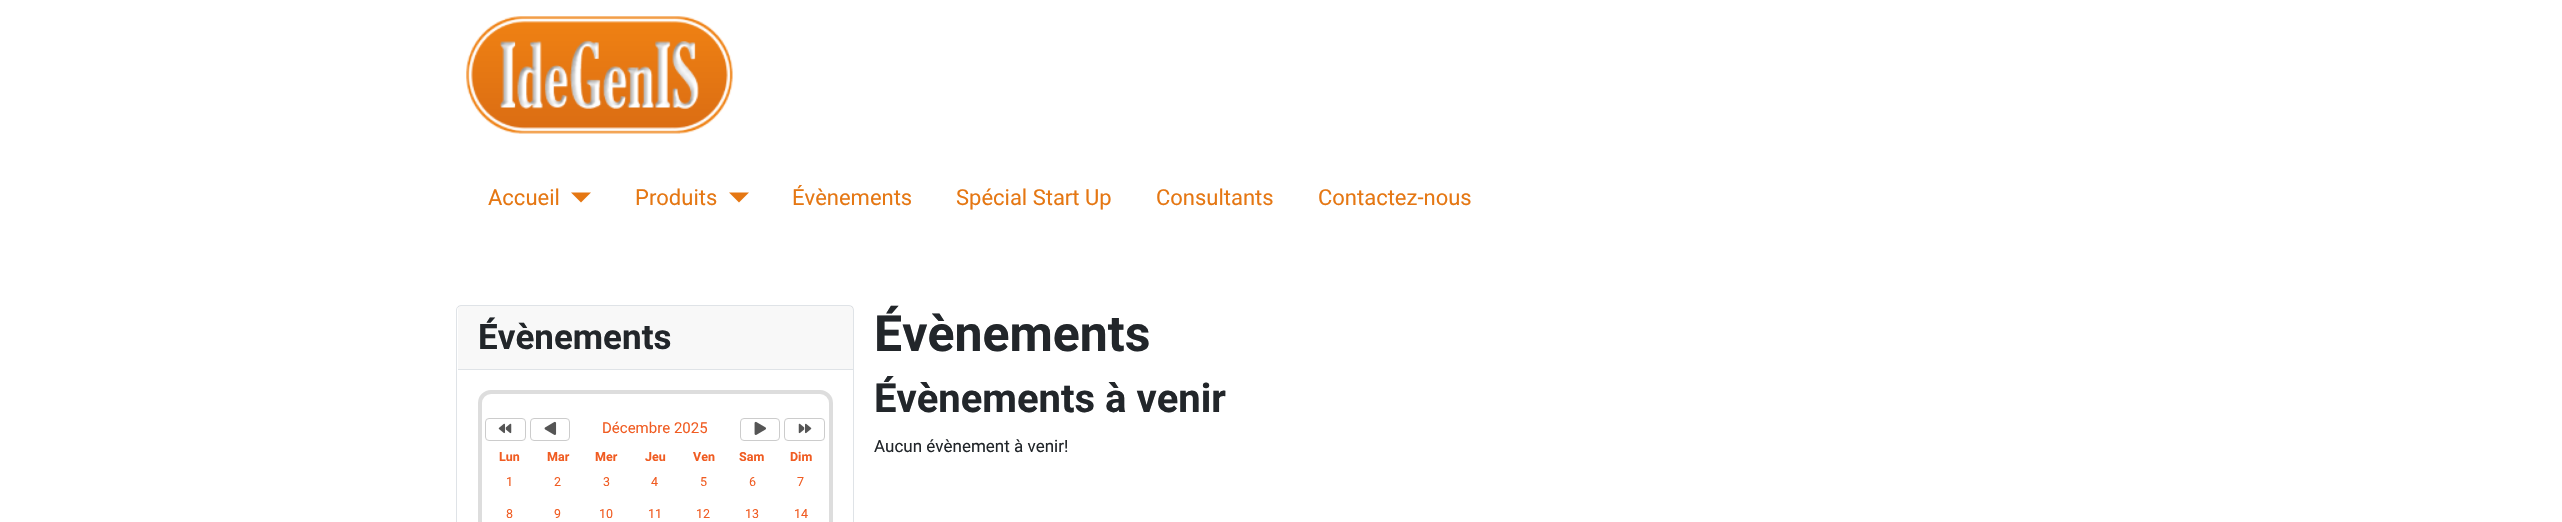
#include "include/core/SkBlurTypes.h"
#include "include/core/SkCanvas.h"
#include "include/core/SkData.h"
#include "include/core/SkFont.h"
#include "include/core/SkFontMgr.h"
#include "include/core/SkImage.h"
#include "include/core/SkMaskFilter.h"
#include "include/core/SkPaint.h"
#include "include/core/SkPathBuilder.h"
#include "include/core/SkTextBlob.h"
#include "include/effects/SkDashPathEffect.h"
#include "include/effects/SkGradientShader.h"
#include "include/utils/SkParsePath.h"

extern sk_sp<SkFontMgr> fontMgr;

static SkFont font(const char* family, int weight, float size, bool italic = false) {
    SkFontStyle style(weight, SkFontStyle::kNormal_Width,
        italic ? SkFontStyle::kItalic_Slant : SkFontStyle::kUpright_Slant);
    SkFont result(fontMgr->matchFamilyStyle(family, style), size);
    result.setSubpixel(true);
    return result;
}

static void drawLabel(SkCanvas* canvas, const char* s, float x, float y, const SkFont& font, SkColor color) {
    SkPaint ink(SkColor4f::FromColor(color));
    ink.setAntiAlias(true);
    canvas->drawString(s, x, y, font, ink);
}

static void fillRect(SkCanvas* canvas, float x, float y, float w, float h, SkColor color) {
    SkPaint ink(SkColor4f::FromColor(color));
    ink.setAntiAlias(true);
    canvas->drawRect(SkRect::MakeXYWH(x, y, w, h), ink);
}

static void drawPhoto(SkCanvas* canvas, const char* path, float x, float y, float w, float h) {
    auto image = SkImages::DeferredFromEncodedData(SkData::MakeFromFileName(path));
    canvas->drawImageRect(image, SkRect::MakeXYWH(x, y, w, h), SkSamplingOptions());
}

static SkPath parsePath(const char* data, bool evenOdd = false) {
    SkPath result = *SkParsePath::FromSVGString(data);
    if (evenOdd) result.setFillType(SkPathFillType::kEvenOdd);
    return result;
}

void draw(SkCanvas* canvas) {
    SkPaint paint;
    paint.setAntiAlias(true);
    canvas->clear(0xFFFFFFFF);
    drawPhoto(canvas, "assets/img1.png", 466, 16, 267, 118);
    SkFont font1 = font("Roboto", 400, 22);
    drawLabel(canvas, "Accueil", 488, 205, font1, 0xFFE57713);
    paint.setColor(0xFFE57713);
    canvas->drawPath(parsePath("M571 192.5H591L581 202.5Z"), paint);
    drawLabel(canvas, "Produits", 635, 205, font1, 0xFFE57713);
    canvas->drawPath(parsePath("M729 192.5H749L739 202.5Z"), paint);
    drawLabel(canvas, "Évènements", 792, 205, font1, 0xFFE57713);
    drawLabel(canvas, "Spécial Start Up", 956, 205, font1, 0xFFE57713);
    drawLabel(canvas, "Consultants", 1156, 205, font1, 0xFFE57713);
    drawLabel(canvas, "Contactez-nous", 1318, 205, font1, 0xFFE57713);
    paint.setStroke(true);
    paint.setStrokeWidth(1);
    paint.setColor(0xFFDFE3E7);
    canvas->drawRoundRect(SkRect::MakeXYWH(456.5f, 305.5f, 397, 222), 4.5f, 4.5f, paint);
    fillRect(canvas, 458, 306, 395, 63, 0x0822262A);
    fillRect(canvas, 458, 369, 395, 1, 0xFFDFE3E7);
    SkFont font2 = font("Roboto", 700, 35);
    drawLabel(canvas, "Évènements", 478, 349, font2, 0xFF22262A);
    paint.setStrokeWidth(4);
    paint.setColor(0xFFDDDDDD);
    canvas->drawRoundRect(SkRect::MakeXYWH(480, 392, 351, 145), 11, 11, paint);
    paint.setStrokeWidth(1);
    paint.setColor(0xFFCCCCCC);
    canvas->drawRoundRect(SkRect::MakeXYWH(485.5f, 418.5f, 40, 22), 3.5f, 3.5f, paint);
    drawPhoto(canvas, "assets/img2.png", 498, 423, 14, 11);
    canvas->drawRoundRect(SkRect::MakeXYWH(530.5f, 418.5f, 39, 22), 3.5f, 3.5f, paint);
    drawPhoto(canvas, "assets/img3.png", 544, 421, 13, 14);
    SkFont font3 = font("Roboto", 400, 15);
    drawLabel(canvas, "Décembre 2025", 602, 433, font3, 0xFFF05C22);
    canvas->drawRoundRect(SkRect::MakeXYWH(740.5f, 418.5f, 39, 22), 3.5f, 3.5f, paint);
    drawPhoto(canvas, "assets/img4.png", 754, 421, 12, 14);
    canvas->drawRoundRect(SkRect::MakeXYWH(784.5f, 418.5f, 40, 22), 3.5f, 3.5f, paint);
    drawPhoto(canvas, "assets/img5.png", 798, 423, 14, 11);
    SkFont font4 = font("Roboto", 700, 12.5f);
    drawLabel(canvas, "Lun", 499, 461, font4, 0xFFF05C22);
    drawLabel(canvas, "Mar", 547, 461, font4, 0xFFF05C22);
    drawLabel(canvas, "Mer", 595, 461, font4, 0xFFF05C22);
    drawLabel(canvas, "Jeu", 645, 461, font4, 0xFFF05C22);
    drawLabel(canvas, "Ven", 693, 461, font4, 0xFFF05C22);
    drawLabel(canvas, "Sam", 739, 461, font4, 0xFFF05C22);
    drawLabel(canvas, "Dim", 790, 461, font4, 0xFFF05C22);
    SkFont font5 = font("Roboto", 400, 12.5f);
    drawLabel(canvas, "1", 506, 486, font5, 0xFFF05C22);
    drawLabel(canvas, "2", 554, 486, font5, 0xFFF05C22);
    drawLabel(canvas, "3", 603, 486, font5, 0xFFF05C22);
    drawLabel(canvas, "4", 651, 486, font5, 0xFFF05C22);
    drawLabel(canvas, "5", 700, 486, font5, 0xFFF05C22);
    drawLabel(canvas, "6", 749, 486, font5, 0xFFF05C22);
    drawLabel(canvas, "7", 797, 486, font5, 0xFFF05C22);
    drawLabel(canvas, "8", 506, 518, font5, 0xFFF05C22);
    drawLabel(canvas, "9", 554, 518, font5, 0xFFF05C22);
    drawLabel(canvas, "10", 599, 518, font5, 0xFFF05C22);
    drawLabel(canvas, "11", 648, 518, font5, 0xFFF05C22);
    drawLabel(canvas, "12", 696, 518, font5, 0xFFF05C22);
    drawLabel(canvas, "13", 745, 518, font5, 0xFFF05C22);
    drawLabel(canvas, "14", 794, 518, font5, 0xFFF05C22);
    SkFont font6 = font("Roboto", 700, 50);
    drawLabel(canvas, "Évènements", 874, 351, font6, 0xFF22262A);
    SkFont font7 = font("Roboto", 700, 40);
    drawLabel(canvas, "Évènements à venir", 874, 412, font7, 0xFF22262A);
    SkFont font8 = font("Roboto", 400, 17);
    drawLabel(canvas, "Aucun évènement à venir!", 874, 452, font8, 0xFF22262A);
}
